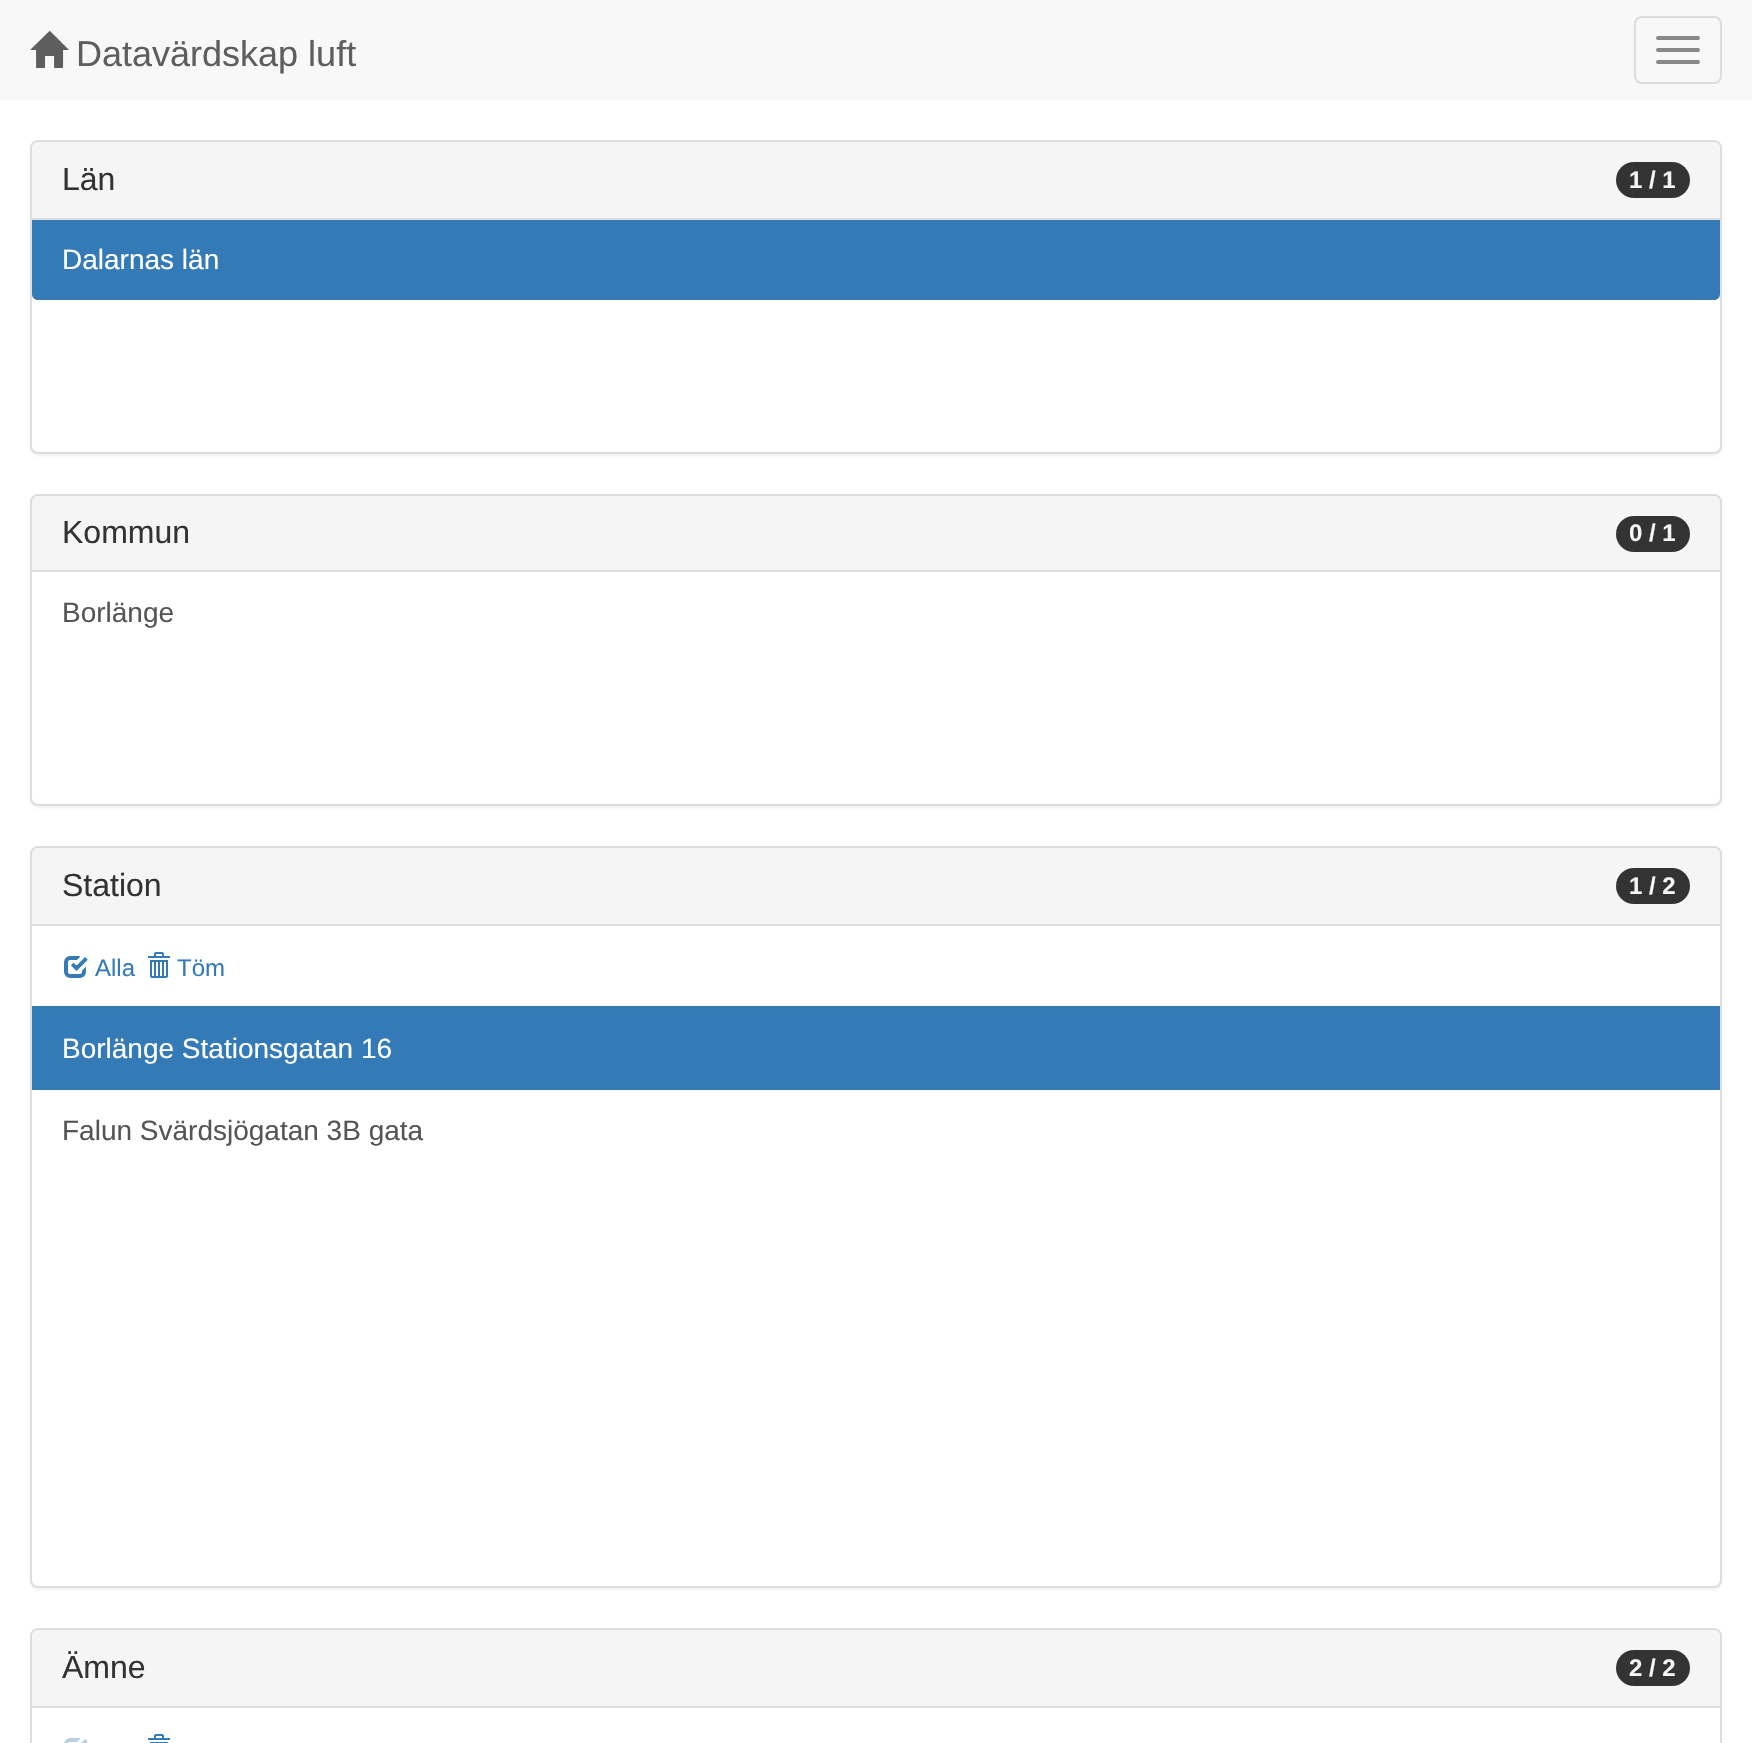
#include "include/core/SkBlurTypes.h"
#include "include/core/SkCanvas.h"
#include "include/core/SkData.h"
#include "include/core/SkFont.h"
#include "include/core/SkFontMgr.h"
#include "include/core/SkImage.h"
#include "include/core/SkMaskFilter.h"
#include "include/core/SkPaint.h"
#include "include/core/SkPathBuilder.h"
#include "include/core/SkTextBlob.h"
#include "include/effects/SkDashPathEffect.h"
#include "include/effects/SkGradientShader.h"
#include "include/utils/SkParsePath.h"

extern sk_sp<SkFontMgr> fontMgr;

static SkFont font(const char* family, int weight, float size, bool italic = false) {
    SkFontStyle style(weight, SkFontStyle::kNormal_Width,
        italic ? SkFontStyle::kItalic_Slant : SkFontStyle::kUpright_Slant);
    SkFont result(fontMgr->matchFamilyStyle(family, style), size);
    result.setSubpixel(true);
    return result;
}

static void drawLabel(SkCanvas* canvas, const char* s, float x, float y, const SkFont& font, SkColor color) {
    SkPaint ink(SkColor4f::FromColor(color));
    ink.setAntiAlias(true);
    canvas->drawString(s, x, y, font, ink);
}

static void fillRect(SkCanvas* canvas, float x, float y, float w, float h, SkColor color) {
    SkPaint ink(SkColor4f::FromColor(color));
    ink.setAntiAlias(true);
    canvas->drawRect(SkRect::MakeXYWH(x, y, w, h), ink);
}

static void fillRRect(SkCanvas* canvas, float x, float y, float w, float h, float radius, SkColor color) {
    SkPaint ink(SkColor4f::FromColor(color));
    ink.setAntiAlias(true);
    canvas->drawRoundRect(SkRect::MakeXYWH(x, y, w, h), radius, radius, ink);
}

static void drawPhoto(SkCanvas* canvas, const char* path, float x, float y, float w, float h) {
    auto image = SkImages::DeferredFromEncodedData(SkData::MakeFromFileName(path));
    canvas->drawImageRect(image, SkRect::MakeXYWH(x, y, w, h), SkSamplingOptions());
}

static SkPath parsePath(const char* data, bool evenOdd = false) {
    SkPath result = *SkParsePath::FromSVGString(data);
    if (evenOdd) result.setFillType(SkPathFillType::kEvenOdd);
    return result;
}

void draw(SkCanvas* canvas) {
    SkPaint paint;
    paint.setAntiAlias(true);
    canvas->clear(0xFFFFFFFF);
    fillRect(canvas, 0, 0, 1752, 100, 0xFFF8F8F8);
    drawPhoto(canvas, "assets/img1.png", 30, 31, 39, 37);
    SkFont font1 = font("Liberation Sans", 400, 36);
    drawLabel(canvas, "Datavärdskap luft", 76, 66, font1, 0xFF5E5E5E);
    paint.setStroke(true);
    paint.setStrokeWidth(2);
    paint.setColor(0xFFDDDDDD);
    canvas->drawRoundRect(SkRect::MakeXYWH(1635, 17, 86, 66), 7, 7, paint);
    fillRRect(canvas, 1656, 36, 44, 4, 2, 0xFF888888);
    fillRRect(canvas, 1656, 48, 44, 4, 2, 0xFF888888);
    fillRRect(canvas, 1656, 60, 44, 4, 2, 0xFF888888);
    paint.setStroke(false);
    paint.setColor(0x0D000000);
    paint.setMaskFilter(SkMaskFilter::MakeBlur(kNormal_SkBlurStyle, 1));
    canvas->drawRoundRect(SkRect::MakeXYWH(30, 142, 1692, 314), 8, 8, paint);
    paint.setMaskFilter(nullptr);
    paint.setColor(0xFFFFFFFF);
    canvas->drawRoundRect(SkRect::MakeXYWH(31, 141, 1690, 312), 7, 7, paint);
    paint.setStroke(true);
    paint.setColor(0xFFDDDDDD);
    canvas->drawRoundRect(SkRect::MakeXYWH(31, 141, 1690, 312), 7, 7, paint);
    paint.setStroke(false);
    paint.setColor(0xFFF5F5F5);
    canvas->drawPath(parsePath("M38 142H1714C1717.5 142 1720 144.5 1720 148V220H32V148C32 144.5 34.5 142 38 142Z"), paint);
    fillRect(canvas, 32, 218, 1688, 2, 0xFFDDDDDD);
    SkFont font2 = font("Liberation Sans", 400, 32);
    drawLabel(canvas, "Län", 62, 190, font2, 0xFF333333);
    fillRRect(canvas, 1616, 162, 74, 36, 18, 0xFF333333);
    SkFont font3 = font("Liberation Sans", 700, 24);
    drawLabel(canvas, "1 / 1", 1629, 188, font3, 0xFFF5F5F5);
    paint.setColor(0xFF337AB7);
    canvas->drawPath(parsePath("M32 220H1720V294C1720 297.5 1717.5 300 1714 300H38C34.5 300 32 297.5 32 294Z"), paint);
    SkFont font4 = font("Liberation Sans", 400, 28);
    drawLabel(canvas, "Dalarnas län", 62, 269, font4, 0xFFFFFFFF);
    paint.setColor(0x0D000000);
    paint.setMaskFilter(SkMaskFilter::MakeBlur(kNormal_SkBlurStyle, 1));
    canvas->drawRoundRect(SkRect::MakeXYWH(30, 496, 1692, 312), 8, 8, paint);
    paint.setMaskFilter(nullptr);
    paint.setColor(0xFFFFFFFF);
    canvas->drawRoundRect(SkRect::MakeXYWH(31, 495, 1690, 310), 7, 7, paint);
    paint.setStroke(true);
    paint.setColor(0xFFDDDDDD);
    canvas->drawRoundRect(SkRect::MakeXYWH(31, 495, 1690, 310), 7, 7, paint);
    paint.setStroke(false);
    paint.setColor(0xFFF5F5F5);
    canvas->drawPath(parsePath("M38 496H1714C1717.5 496 1720 498.5 1720 502V572H32V502C32 498.5 34.5 496 38 496Z"), paint);
    fillRect(canvas, 32, 570, 1688, 2, 0xFFDDDDDD);
    drawLabel(canvas, "Kommun", 62, 543, font2, 0xFF333333);
    fillRRect(canvas, 1616, 516, 74, 36, 18, 0xFF333333);
    drawLabel(canvas, "0 / 1", 1629, 541, font3, 0xFFF5F5F5);
    drawLabel(canvas, "Borlänge", 62, 622, font4, 0xFF555555);
    paint.setColor(0x0D000000);
    paint.setMaskFilter(SkMaskFilter::MakeBlur(kNormal_SkBlurStyle, 1));
    canvas->drawRoundRect(SkRect::MakeXYWH(30, 848, 1692, 742), 8, 8, paint);
    paint.setMaskFilter(nullptr);
    paint.setColor(0xFFFFFFFF);
    canvas->drawRoundRect(SkRect::MakeXYWH(31, 847, 1690, 740), 7, 7, paint);
    paint.setStroke(true);
    paint.setColor(0xFFDDDDDD);
    canvas->drawRoundRect(SkRect::MakeXYWH(31, 847, 1690, 740), 7, 7, paint);
    paint.setStroke(false);
    paint.setColor(0xFFF5F5F5);
    canvas->drawPath(parsePath("M38 848H1714C1717.5 848 1720 850.5 1720 854V926H32V854C32 850.5 34.5 848 38 848Z"), paint);
    fillRect(canvas, 32, 924, 1688, 2, 0xFFDDDDDD);
    drawLabel(canvas, "Station", 62, 896, font2, 0xFF333333);
    fillRRect(canvas, 1616, 868, 74, 36, 18, 0xFF333333);
    drawLabel(canvas, "1 / 2", 1629, 894, font3, 0xFFF5F5F5);
    drawPhoto(canvas, "assets/img2.png", 64, 956, 24, 22);
    SkFont font5 = font("Liberation Sans", 400, 24);
    drawLabel(canvas, "Alla", 95, 976, font5, 0xFF337AB7);
    drawPhoto(canvas, "assets/img3.png", 148, 952, 22, 26);
    drawLabel(canvas, "Töm", 177, 976, font5, 0xFF337AB7);
    fillRect(canvas, 32, 1006, 1688, 84, 0xFF337AB7);
    drawLabel(canvas, "Borlänge Stationsgatan 16", 62, 1058, font4, 0xFFFFFFFF);
    drawLabel(canvas, "Falun Svärdsjögatan 3B gata", 62, 1140, font4, 0xFF555555);
    paint.setStroke(true);
    paint.setColor(0xFFDDDDDD);
    canvas->drawRoundRect(SkRect::MakeXYWH(31, 1629, 1690, 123), 7, 7, paint);
    paint.setStroke(false);
    paint.setColor(0xFFF5F5F5);
    canvas->drawPath(parsePath("M38 1630H1714C1717.5 1630 1720 1632.5 1720 1636V1708H32V1636C32 1632.5 34.5 1630 38 1630Z"), paint);
    fillRect(canvas, 32, 1706, 1688, 2, 0xFFDDDDDD);
    drawLabel(canvas, "Ämne", 62, 1678, font2, 0xFF333333);
    fillRRect(canvas, 1616, 1650, 74, 36, 18, 0xFF333333);
    drawLabel(canvas, "2 / 2", 1629, 1676, font3, 0xFFF5F5F5);
    drawPhoto(canvas, "assets/img4.png", 64, 1738, 24, 5);
    drawPhoto(canvas, "assets/img5.png", 148, 1734, 22, 9);
}
